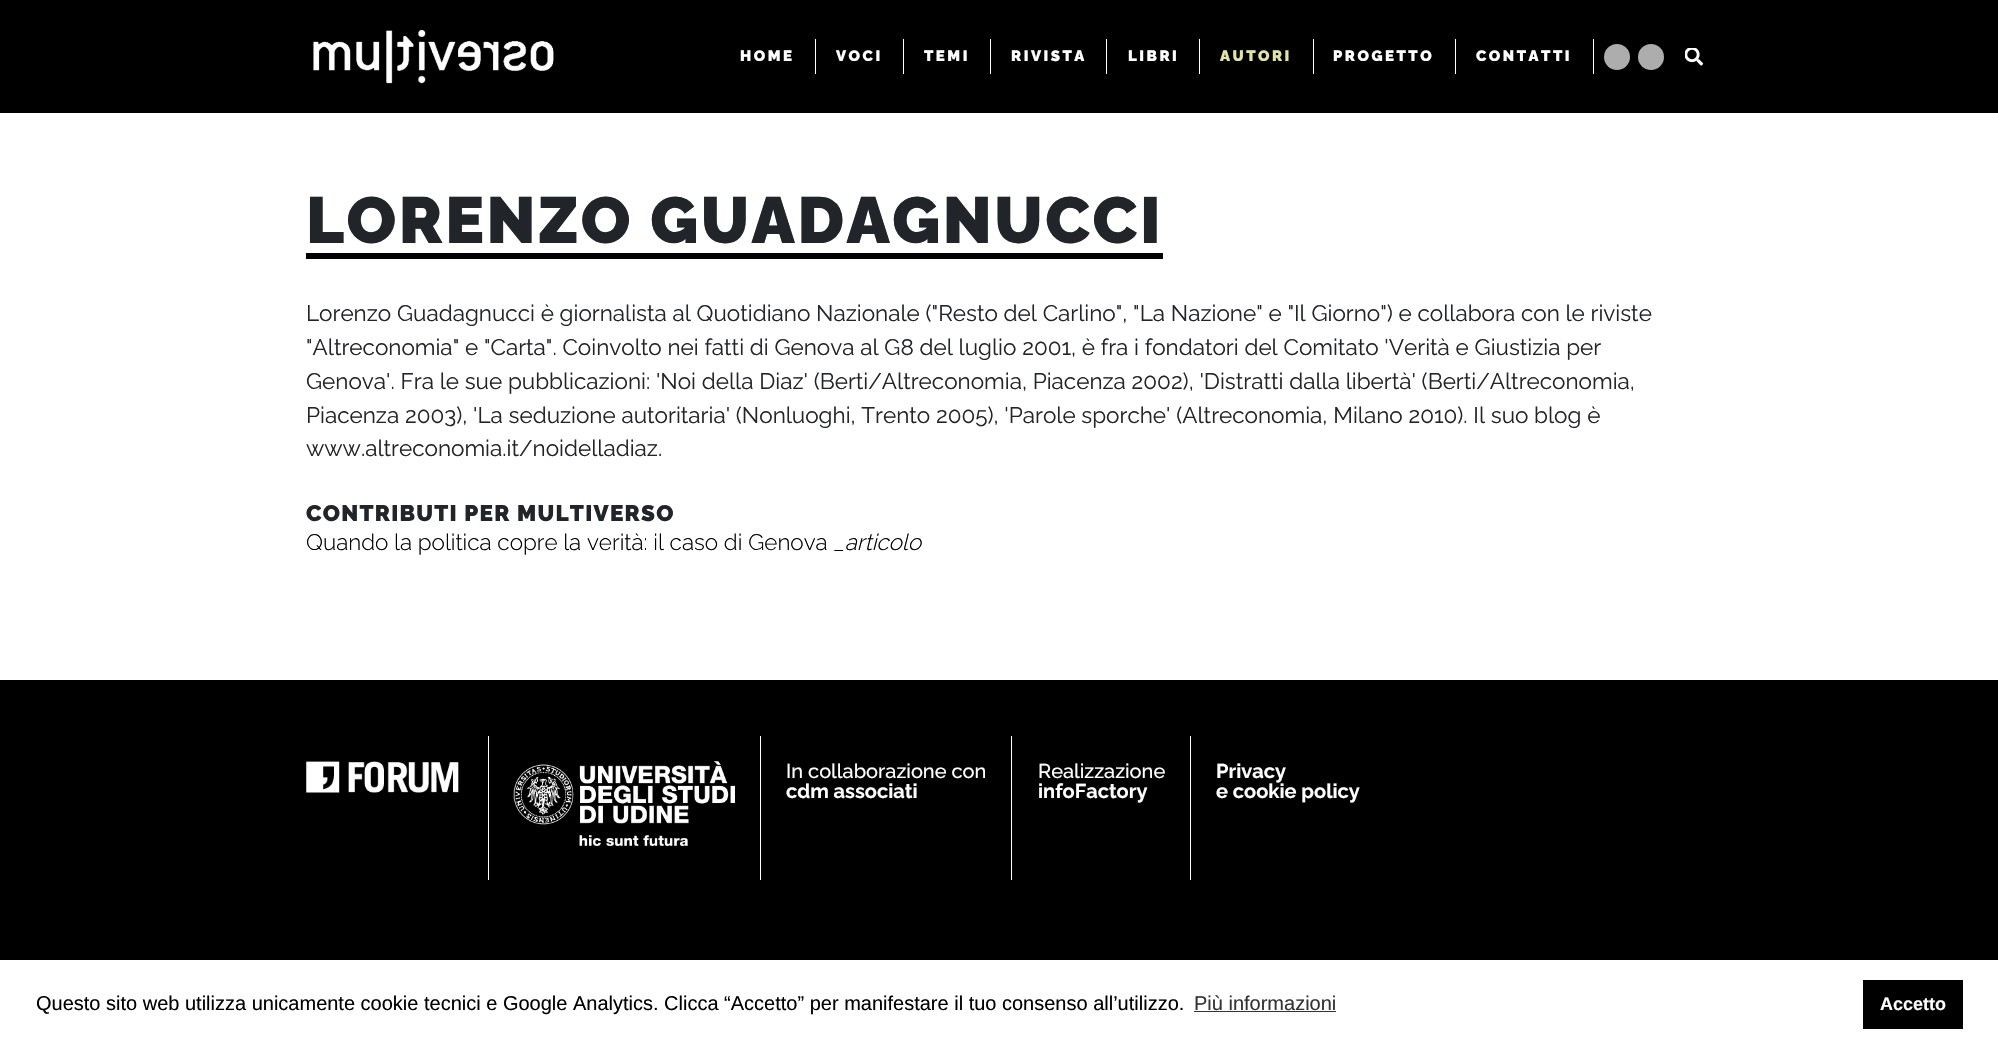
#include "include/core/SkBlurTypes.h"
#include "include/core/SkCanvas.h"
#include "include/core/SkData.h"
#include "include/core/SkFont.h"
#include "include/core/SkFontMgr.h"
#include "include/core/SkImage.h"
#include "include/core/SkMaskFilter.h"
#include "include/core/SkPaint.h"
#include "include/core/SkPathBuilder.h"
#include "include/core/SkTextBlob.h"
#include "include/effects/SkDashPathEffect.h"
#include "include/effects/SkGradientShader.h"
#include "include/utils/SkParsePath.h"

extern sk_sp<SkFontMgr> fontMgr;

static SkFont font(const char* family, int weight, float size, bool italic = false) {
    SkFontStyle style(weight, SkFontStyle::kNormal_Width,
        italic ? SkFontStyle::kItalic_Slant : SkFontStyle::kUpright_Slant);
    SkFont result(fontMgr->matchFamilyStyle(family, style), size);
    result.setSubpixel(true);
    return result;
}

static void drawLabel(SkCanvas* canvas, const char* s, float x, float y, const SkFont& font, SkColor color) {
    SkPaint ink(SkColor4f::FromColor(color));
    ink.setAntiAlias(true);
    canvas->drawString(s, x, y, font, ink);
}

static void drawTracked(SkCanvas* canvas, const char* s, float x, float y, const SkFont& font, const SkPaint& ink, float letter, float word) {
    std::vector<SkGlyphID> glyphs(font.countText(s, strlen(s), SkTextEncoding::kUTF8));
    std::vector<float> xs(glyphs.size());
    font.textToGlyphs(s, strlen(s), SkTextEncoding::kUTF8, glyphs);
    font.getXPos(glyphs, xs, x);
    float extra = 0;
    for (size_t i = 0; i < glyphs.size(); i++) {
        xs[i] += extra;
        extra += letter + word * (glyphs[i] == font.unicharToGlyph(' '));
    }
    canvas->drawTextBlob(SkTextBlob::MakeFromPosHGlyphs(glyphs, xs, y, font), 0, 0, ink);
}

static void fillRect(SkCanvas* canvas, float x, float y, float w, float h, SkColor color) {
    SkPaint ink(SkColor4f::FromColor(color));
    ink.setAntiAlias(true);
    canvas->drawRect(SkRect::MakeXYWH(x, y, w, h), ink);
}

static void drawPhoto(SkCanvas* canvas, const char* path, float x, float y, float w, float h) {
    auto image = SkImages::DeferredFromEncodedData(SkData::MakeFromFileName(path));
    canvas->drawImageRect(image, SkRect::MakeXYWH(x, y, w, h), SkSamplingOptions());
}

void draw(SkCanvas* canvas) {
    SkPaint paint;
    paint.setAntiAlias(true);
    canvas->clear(0xFFFFFFFF);
    fillRect(canvas, 0, 0, 1998, 113, 0xFF000000);
    drawPhoto(canvas, "assets/img1.png", 313, 30, 241, 54);
    SkFont font1 = font("Raleway", 900, 15);
    paint.setColor(0xFFFFFFFF);
    drawTracked(canvas, "HOME", 740, 61, font1, paint, 2.5f, 0);
    fillRect(canvas, 815, 39, 1, 35, 0xFFFFFFFF);
    drawTracked(canvas, "VOCI", 836, 61, font1, paint, 2.5f, 0);
    fillRect(canvas, 903, 39, 1, 35, 0xFFFFFFFF);
    drawTracked(canvas, "TEMI", 924, 61, font1, paint, 2.5f, 0);
    fillRect(canvas, 990, 39, 1, 35, 0xFFFFFFFF);
    drawTracked(canvas, "RIVISTA", 1011, 61, font1, paint, 2.5f, 0);
    fillRect(canvas, 1106, 39, 1, 35, 0xFFFFFFFF);
    drawTracked(canvas, "LIBRI", 1128, 61, font1, paint, 2.5f, 0);
    fillRect(canvas, 1199, 39, 1, 35, 0xFFFFFFFF);
    paint.setColor(0xFFE3E3A6);
    drawTracked(canvas, "AUTORI", 1220, 61, font1, paint, 2.5f, 0);
    fillRect(canvas, 1313, 39, 1, 35, 0xFFFFFFFF);
    paint.setColor(0xFFFFFFFF);
    drawTracked(canvas, "PROGETTO", 1333, 61, font1, paint, 2.5f, 0);
    fillRect(canvas, 1455, 39, 1, 35, 0xFFFFFFFF);
    drawTracked(canvas, "CONTATTI", 1476, 61, font1, paint, 2.5f, 0);
    fillRect(canvas, 1593, 39, 1, 35, 0xFFFFFFFF);
    paint.setColor(0xFFADADAD);
    canvas->drawCircle(1617, 57, 13, paint);
    canvas->drawCircle(1651, 57, 13, paint);
    drawPhoto(canvas, "assets/img2.png", 1685, 48, 19, 18);
    fillRect(canvas, 306, 253, 857, 6, 0xFF000000);
    SkFont font2 = font("Raleway", 900, 65);
    paint.setColor(0xFF212529);
    drawTracked(canvas, "LORENZO GUADAGNUCCI", 306, 243, font2, paint, 2.5f, 0);
    SkFont font3 = font("Raleway", 400, 22.5f);
    drawLabel(canvas, "Lorenzo Guadagnucci è giornalista al Quotidiano Nazionale (\"Resto del Carlino\", \"La Nazione\" e \"Il Giorno\") e collabora con le riviste", 306, 321, font3, 0xFF212529);
    drawLabel(canvas, "\"Altreconomia\" e \"Carta\". Coinvolto nei fatti di Genova al G8 del luglio 2001, è fra i fondatori del Comitato 'Verità e Giustizia per", 306, 355, font3, 0xFF212529);
    drawLabel(canvas, "Genova'. Fra le sue pubblicazioni: 'Noi della Diaz' (Berti/Altreconomia, Piacenza 2002), 'Distratti dalla libertà' (Berti/Altreconomia,", 306, 389, font3, 0xFF212529);
    drawLabel(canvas, "Piacenza 2003), 'La seduzione autoritaria' (Nonluoghi, Trento 2005), 'Parole sporche' (Altreconomia, Milano 2010). Il suo blog è", 306, 423, font3, 0xFF212529);
    drawLabel(canvas, "www.altreconomia.it/noidelladiaz.", 306, 456, font3, 0xFF212529);
    SkFont font4 = font("Raleway", 900, 22.5f);
    drawTracked(canvas, "CONTRIBUTI PER MULTIVERSO", 306, 521, font4, paint, 1.25f, 0);
    SkFont font5 = font("Raleway", 300, 22.5f);
    drawLabel(canvas, "Quando la politica copre la verità: il caso di Genova", 306, 550, font5, 0xFF000000);
    SkFont font6 = font("Raleway", 300, 22.5f, true);
    drawLabel(canvas, "_articolo", 833, 550, font6, 0xFF000000);
    fillRect(canvas, 0, 680, 1998, 280, 0xFF000000);
    fillRect(canvas, 488, 736, 1, 144, 0xFFFFFFFF);
    drawPhoto(canvas, "assets/img3.png", 306, 761, 153, 32);
    fillRect(canvas, 760, 736, 1, 144, 0xFFFFFFFF);
    drawPhoto(canvas, "assets/img4.png", 513, 761, 222, 85);
    fillRect(canvas, 1011, 736, 1, 144, 0xFFFFFFFF);
    SkFont font7 = font("Raleway", 500, 20);
    drawLabel(canvas, "In collaborazione con", 786, 778, font7, 0xFFFFFFFF);
    SkFont font8 = font("Raleway", 700, 20);
    drawLabel(canvas, "cdm associati", 786, 798, font8, 0xFFFFFFFF);
    fillRect(canvas, 1190, 736, 1, 144, 0xFFFFFFFF);
    drawLabel(canvas, "Realizzazione", 1038, 778, font7, 0xFFFFFFFF);
    drawLabel(canvas, "infoFactory", 1038, 798, font8, 0xFFFFFFFF);
    drawLabel(canvas, "Privacy", 1216, 778, font8, 0xFFFFFFFF);
    drawLabel(canvas, "e cookie policy", 1216, 798, font8, 0xFFFFFFFF);
    SkFont font9 = font("Liberation Sans", 400, 20);
    drawLabel(canvas, "Questo sito web utilizza unicamente cookie tecnici e Google Analytics. Clicca “Accetto” per manifestare il tuo consenso all’utilizzo.", 36, 1010, font9, 0xFF000000);
    drawLabel(canvas, "Più informazioni", 1194, 1010, font9, 0xFF333333);
    fillRect(canvas, 1194, 1011, 142, 1, 0xFF333333);
    fillRect(canvas, 1863, 980, 100, 49, 0xFF000000);
    SkFont font10 = font("Liberation Sans", 700, 18);
    drawLabel(canvas, "Accetto", 1880, 1010, font10, 0xFFFFFFFF);
}
